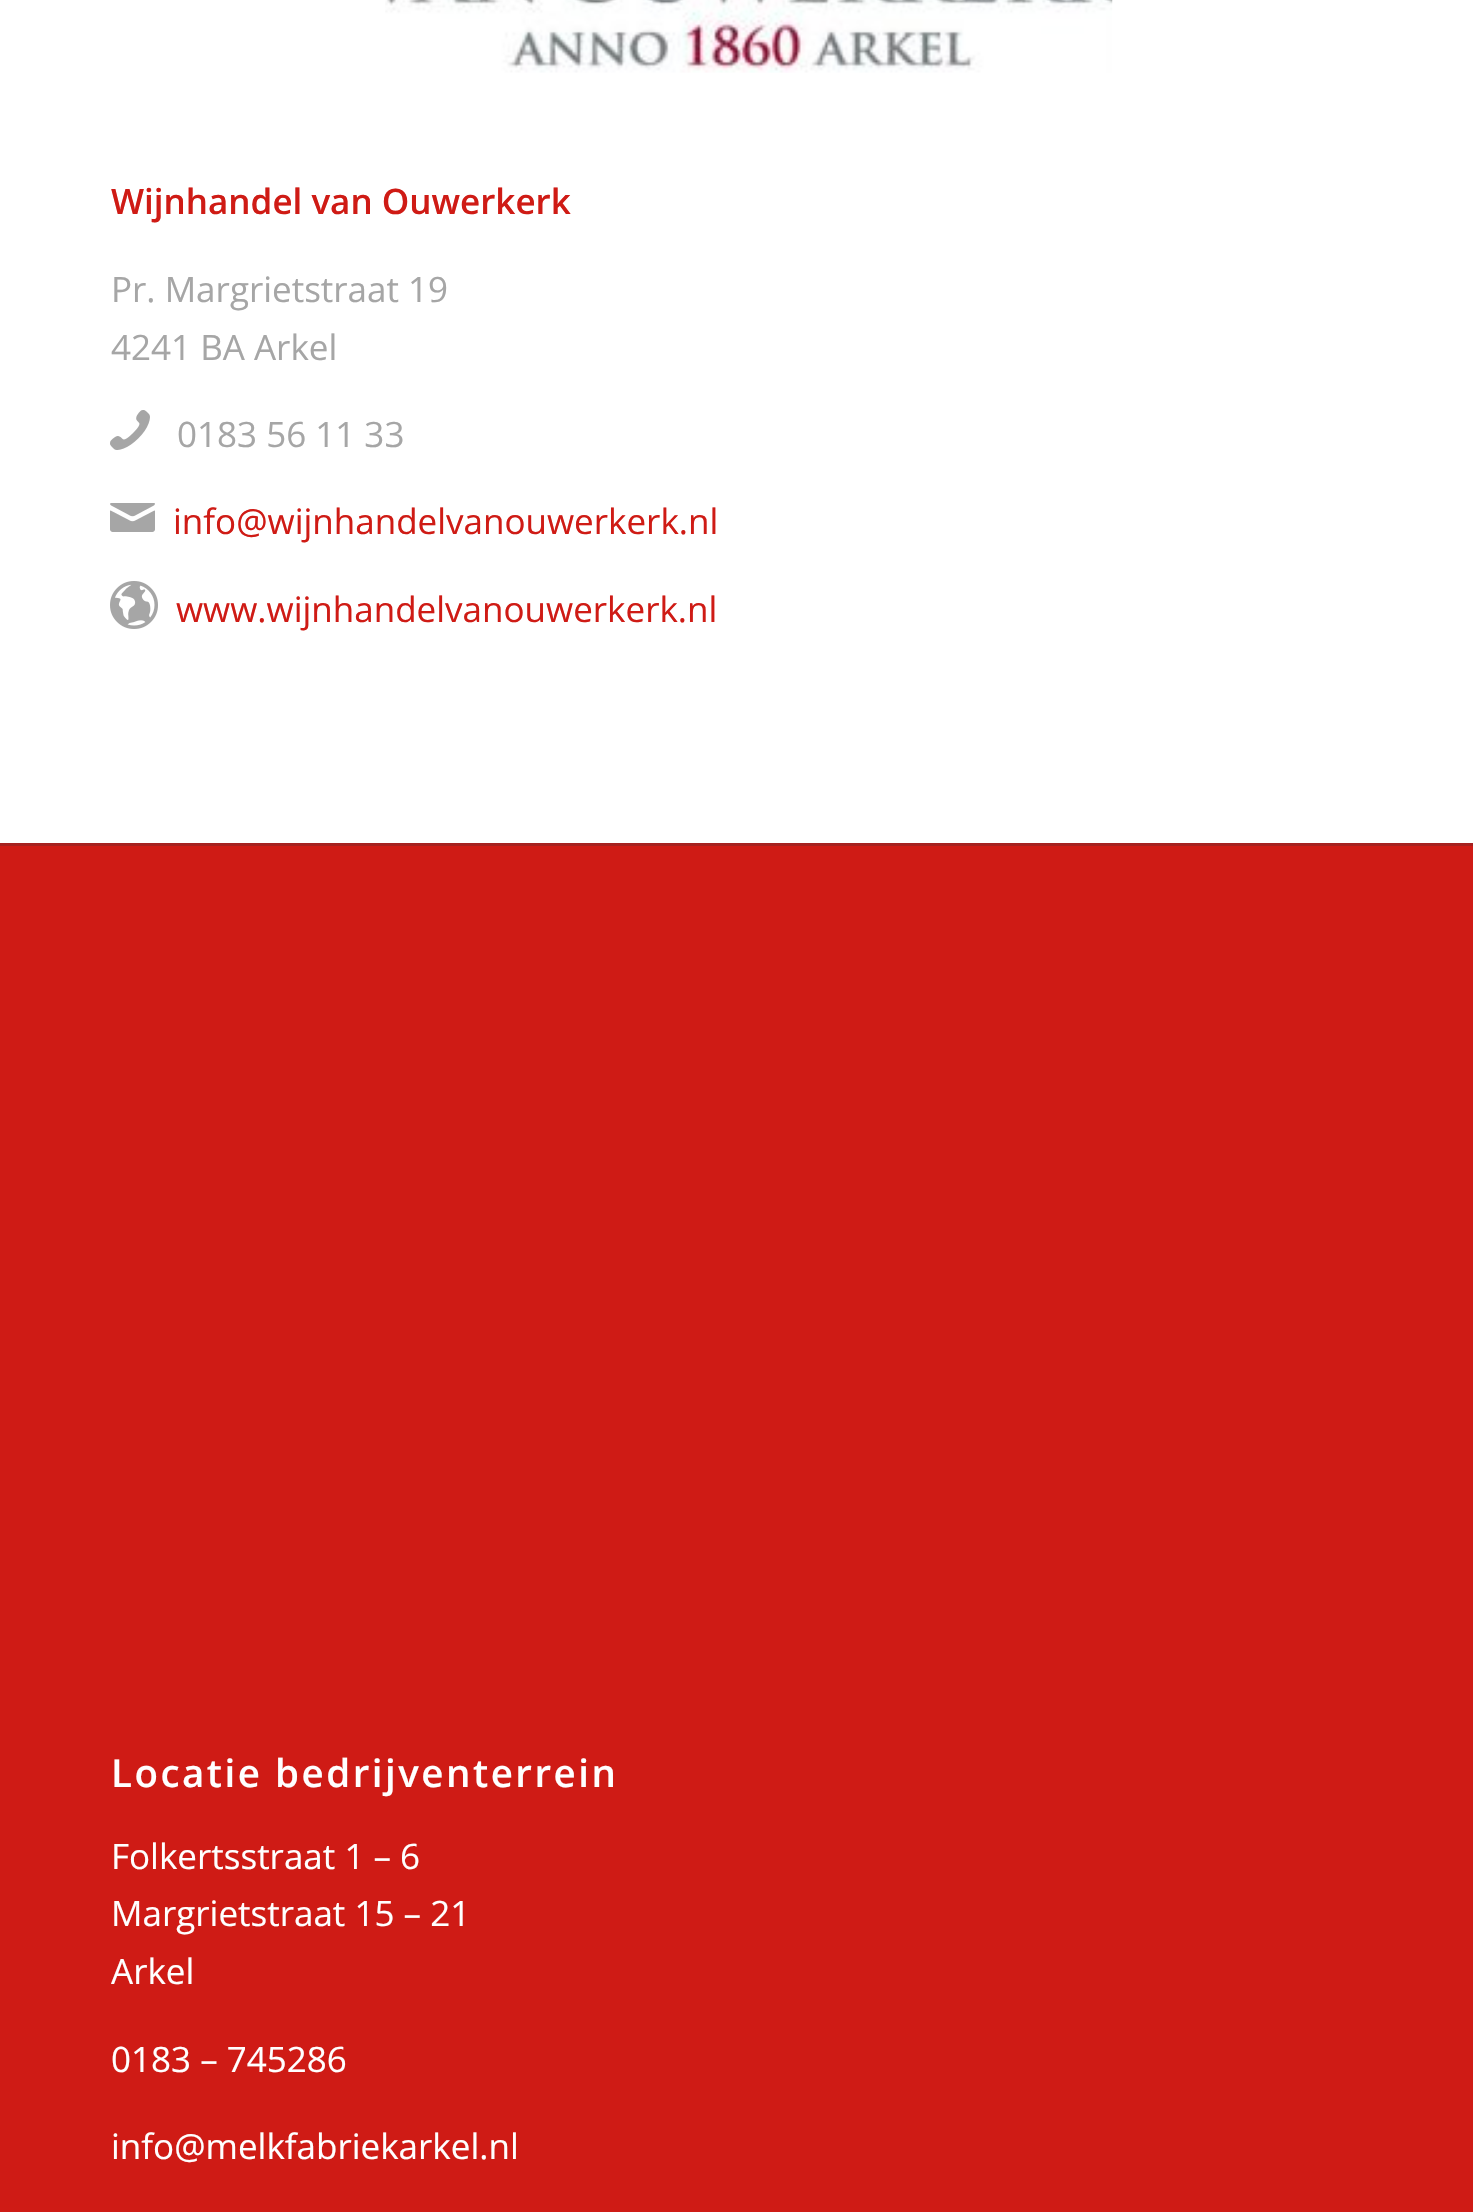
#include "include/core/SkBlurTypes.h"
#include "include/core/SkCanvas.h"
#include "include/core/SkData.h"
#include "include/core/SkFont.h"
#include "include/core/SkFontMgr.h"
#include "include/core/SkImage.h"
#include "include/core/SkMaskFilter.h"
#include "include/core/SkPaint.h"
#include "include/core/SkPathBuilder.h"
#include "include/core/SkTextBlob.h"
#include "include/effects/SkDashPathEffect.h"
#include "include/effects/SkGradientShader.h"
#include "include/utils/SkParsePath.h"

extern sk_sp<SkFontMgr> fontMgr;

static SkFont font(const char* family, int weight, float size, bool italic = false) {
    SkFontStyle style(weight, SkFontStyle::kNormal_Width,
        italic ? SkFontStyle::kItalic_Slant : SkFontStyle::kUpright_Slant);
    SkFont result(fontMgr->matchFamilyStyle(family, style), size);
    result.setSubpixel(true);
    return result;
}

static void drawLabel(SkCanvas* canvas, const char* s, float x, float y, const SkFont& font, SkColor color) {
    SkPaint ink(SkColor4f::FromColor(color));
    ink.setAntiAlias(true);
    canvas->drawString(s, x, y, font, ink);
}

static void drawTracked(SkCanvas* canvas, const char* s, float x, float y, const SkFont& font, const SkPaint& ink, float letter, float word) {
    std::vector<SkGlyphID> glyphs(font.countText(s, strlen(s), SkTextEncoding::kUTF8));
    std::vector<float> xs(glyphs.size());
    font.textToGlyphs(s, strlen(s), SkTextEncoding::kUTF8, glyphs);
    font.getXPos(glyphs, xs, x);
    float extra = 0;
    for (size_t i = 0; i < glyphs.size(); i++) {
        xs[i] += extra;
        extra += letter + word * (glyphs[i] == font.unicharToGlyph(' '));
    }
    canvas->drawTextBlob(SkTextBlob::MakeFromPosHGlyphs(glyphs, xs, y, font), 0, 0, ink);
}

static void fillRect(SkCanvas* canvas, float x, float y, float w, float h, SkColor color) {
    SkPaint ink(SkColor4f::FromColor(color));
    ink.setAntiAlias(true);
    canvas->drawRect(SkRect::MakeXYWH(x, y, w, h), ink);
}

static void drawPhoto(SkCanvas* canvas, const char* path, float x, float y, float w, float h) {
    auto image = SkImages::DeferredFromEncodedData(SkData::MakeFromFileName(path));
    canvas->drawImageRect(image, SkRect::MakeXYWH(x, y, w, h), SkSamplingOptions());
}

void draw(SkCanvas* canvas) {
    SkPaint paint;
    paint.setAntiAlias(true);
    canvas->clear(0xFFFFFFFF);
    drawPhoto(canvas, "assets/img1.png", 385, 0, 728, 73);
    SkFont font1 = font("Open Sans", 600, 35);
    drawLabel(canvas, "Wijnhandel van Ouwerkerk", 111, 214, font1, 0xFFCF1B15);
    SkFont font2 = font("Open Sans", 400, 35);
    drawLabel(canvas, "Pr. Margrietstraat 19", 111, 302, font2, 0xFFA6A6A6);
    drawLabel(canvas, "4241 BA Arkel", 111, 360, font2, 0xFFA6A6A6);
    drawPhoto(canvas, "assets/img2.png", 110, 410, 40, 40);
    drawLabel(canvas, "0183 56 11 33", 177, 447, font2, 0xFFA6A6A6);
    drawPhoto(canvas, "assets/img3.png", 110, 503, 45, 29);
    drawLabel(canvas, "info@wijnhandelvanouwerkerk.nl", 173, 534, font2, 0xFFCF1B15);
    drawPhoto(canvas, "assets/img4.png", 110, 581, 48, 48);
    drawLabel(canvas, "www.wijnhandelvanouwerkerk.nl", 176, 622, font2, 0xFFCF1B15);
    fillRect(canvas, 0, 846, 1473, 1366, 0xFFCF1B15);
    fillRect(canvas, 0, 843, 1473, 3, 0xFFA6211F);
    SkFont font3 = font("Open Sans", 600, 38.5f);
    paint.setColor(0xFFFFFFFF);
    drawTracked(canvas, "Locatie bedrijventerrein", 111, 1787, font3, paint, 2.5f, 0);
    drawLabel(canvas, "Folkertsstraat 1 – 6", 111, 1869, font2, 0xFFFFFFFF);
    drawLabel(canvas, "Margrietstraat 15 – 21", 111, 1926, font2, 0xFFFFFFFF);
    drawLabel(canvas, "Arkel", 111, 1984, font2, 0xFFFFFFFF);
    drawLabel(canvas, "0183 – 745286", 111, 2072, font2, 0xFFFFFFFF);
    drawLabel(canvas, "info@melkfabriekarkel.nl", 111, 2159, font2, 0xFFFFFFFF);
}
